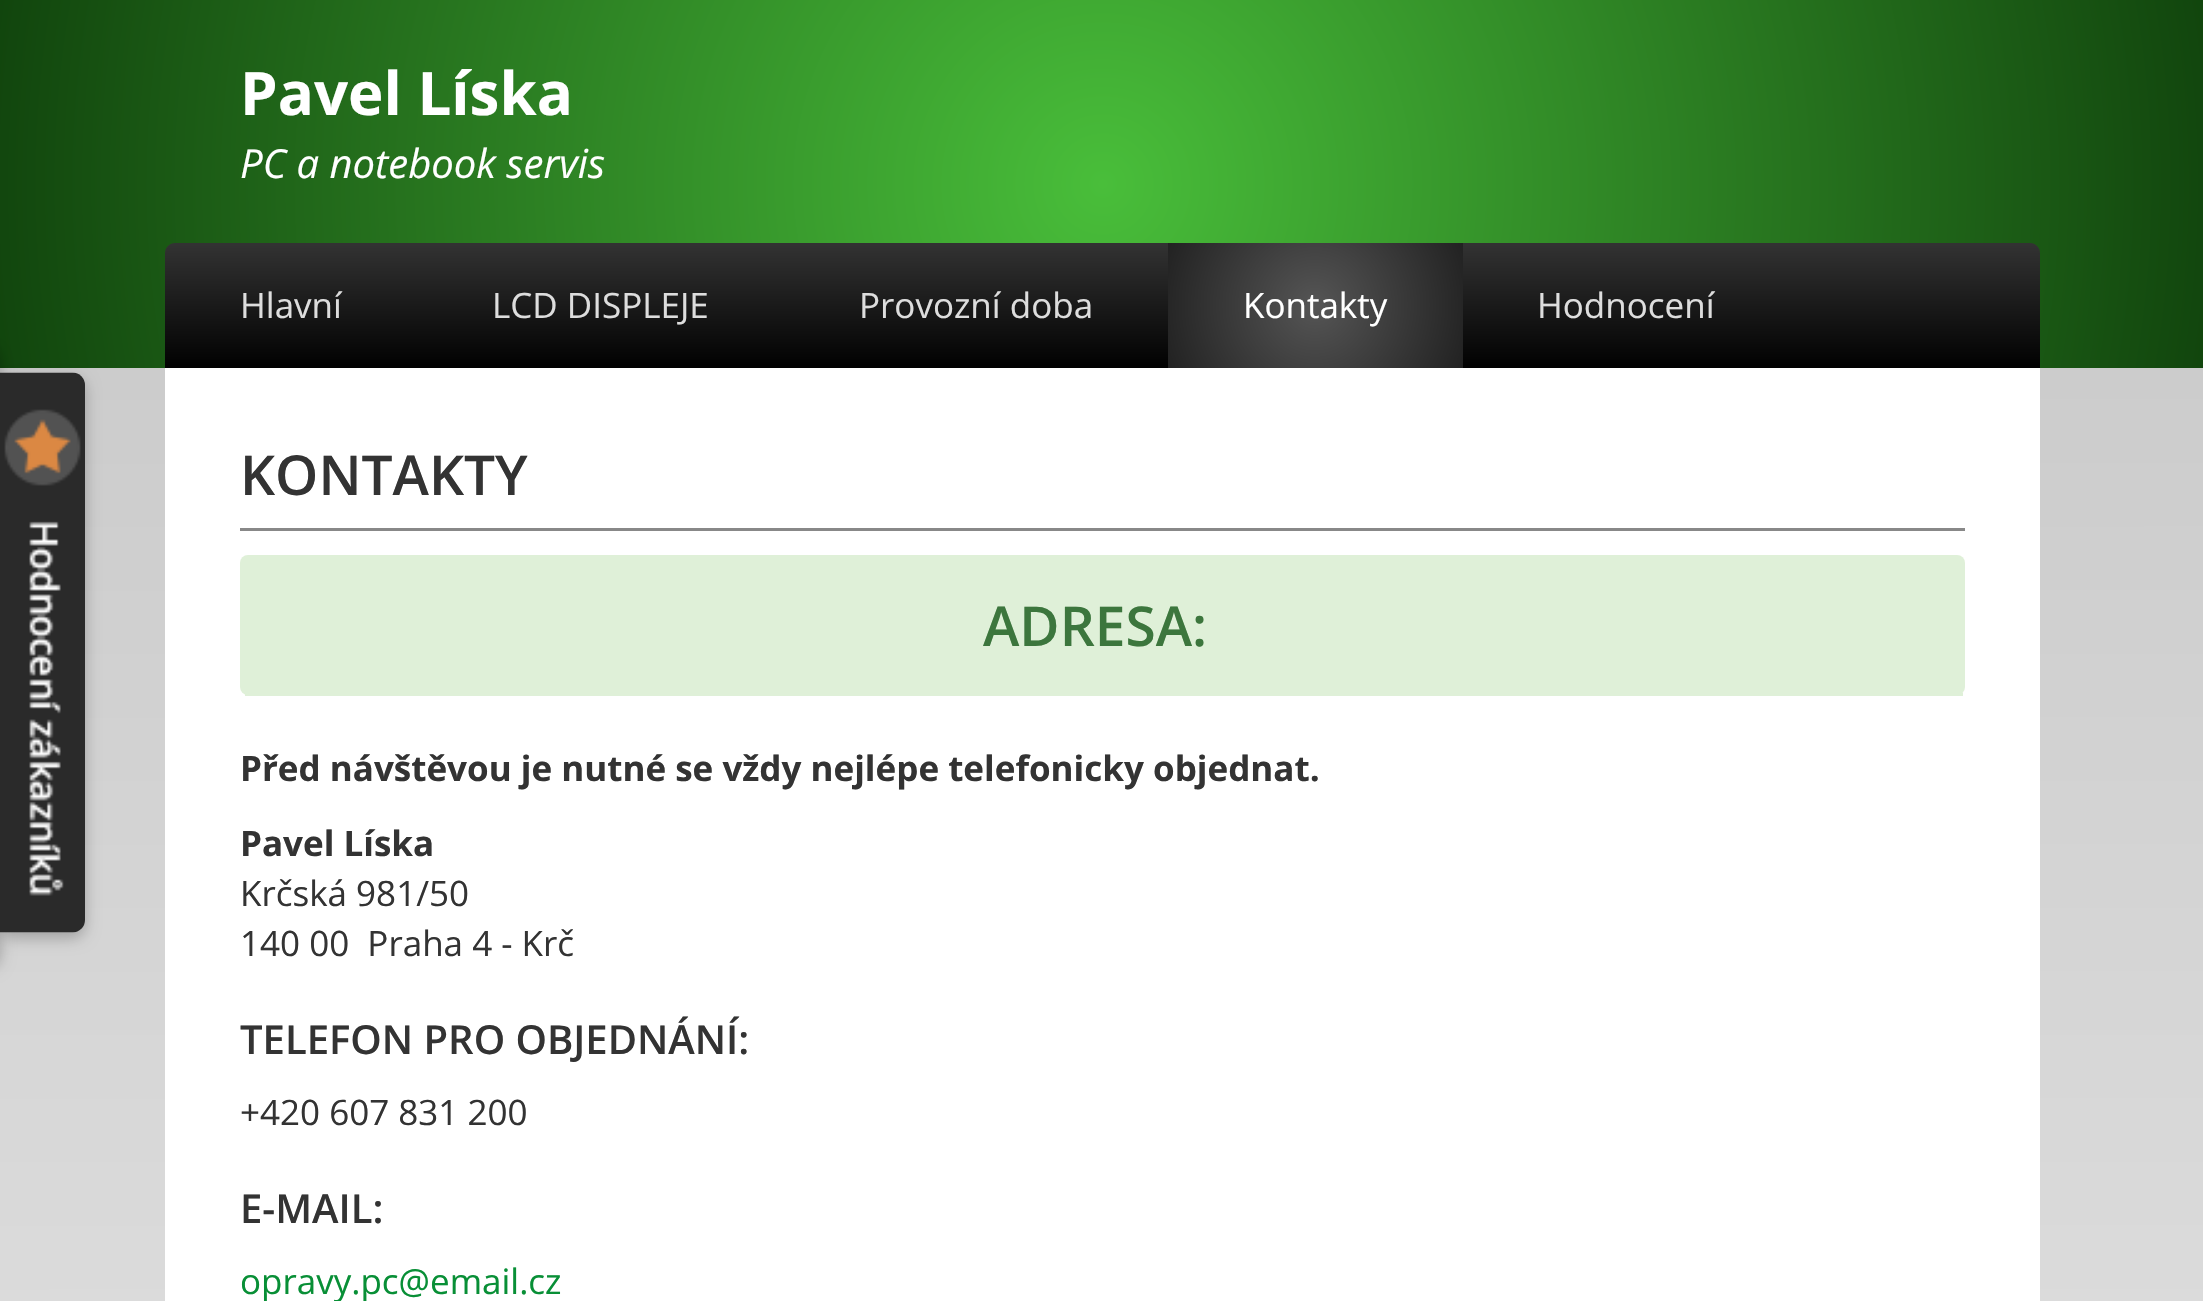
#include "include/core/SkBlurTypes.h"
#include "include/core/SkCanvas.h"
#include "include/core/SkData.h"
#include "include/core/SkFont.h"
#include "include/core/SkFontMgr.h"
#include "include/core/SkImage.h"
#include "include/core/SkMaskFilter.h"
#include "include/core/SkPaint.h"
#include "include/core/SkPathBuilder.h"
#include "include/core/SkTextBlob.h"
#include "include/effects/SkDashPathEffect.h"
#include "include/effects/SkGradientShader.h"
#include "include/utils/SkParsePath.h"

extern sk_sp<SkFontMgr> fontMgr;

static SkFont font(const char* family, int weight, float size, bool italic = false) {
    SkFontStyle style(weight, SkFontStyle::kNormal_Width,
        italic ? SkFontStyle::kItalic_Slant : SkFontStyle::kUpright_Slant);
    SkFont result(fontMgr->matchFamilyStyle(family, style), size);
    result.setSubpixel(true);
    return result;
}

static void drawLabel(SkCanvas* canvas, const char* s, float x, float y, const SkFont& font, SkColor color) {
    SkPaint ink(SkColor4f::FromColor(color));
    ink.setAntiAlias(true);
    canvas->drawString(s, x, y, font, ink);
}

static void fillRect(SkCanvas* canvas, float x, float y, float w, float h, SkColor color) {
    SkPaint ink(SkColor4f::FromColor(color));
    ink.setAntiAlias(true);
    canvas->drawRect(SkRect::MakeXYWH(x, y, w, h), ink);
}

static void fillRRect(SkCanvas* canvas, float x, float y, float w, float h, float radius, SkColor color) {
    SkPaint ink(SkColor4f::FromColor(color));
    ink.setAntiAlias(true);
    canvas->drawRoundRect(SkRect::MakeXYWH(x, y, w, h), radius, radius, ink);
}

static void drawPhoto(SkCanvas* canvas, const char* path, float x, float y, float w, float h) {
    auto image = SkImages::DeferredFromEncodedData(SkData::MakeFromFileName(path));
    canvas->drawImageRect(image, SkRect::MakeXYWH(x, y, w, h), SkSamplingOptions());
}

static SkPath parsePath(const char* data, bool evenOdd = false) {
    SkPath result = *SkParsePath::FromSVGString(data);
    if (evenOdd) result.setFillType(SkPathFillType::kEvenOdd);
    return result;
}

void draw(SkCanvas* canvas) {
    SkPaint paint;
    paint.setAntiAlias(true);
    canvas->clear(0xFFFFFFFF);
    {
        const SkColor colors[] = {0xFF49BE3A, 0xFF11450D};
        const float stops[] = {0, 1};
        paint.setShader(SkGradientShader::MakeRadial({1103, 184}, 1118, colors, stops, 2, SkTileMode::kClamp));
        paint.setAlpha(255);
    }
    canvas->drawRect(SkRect::MakeXYWH(0, 0, 2203, 368), paint);
    {
        const SkColor colors[] = {0xFFCCCCCC, 0xFFFFFFFF};
        const float stops[] = {0, 1};
        const SkPoint ends[] = {{1102, 368}, {1103, 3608}};
        paint.setShader(SkGradientShader::MakeLinear(ends, colors, stops, 2, SkTileMode::kClamp));
        paint.setAlpha(255);
    }
    canvas->drawRect(SkRect::MakeXYWH(0, 368, 2203, 933), paint);
    paint.setShader(nullptr);
    paint.setColor(0x40000000);
    paint.setMaskFilter(SkMaskFilter::MakeBlur(kNormal_SkBlurStyle, 7.5f));
    canvas->drawRoundRect(SkRect::MakeXYWH(-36, 348, 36, 620), 13, 13, paint);
    paint.setMaskFilter(nullptr);
    paint.setMaskFilter(SkMaskFilter::MakeBlur(kNormal_SkBlurStyle, 7.5f));
    canvas->drawRoundRect(SkRect::MakeXYWH(0, 378, 85, 560), 13, 13, paint);
    paint.setMaskFilter(nullptr);
    drawPhoto(canvas, "assets/img1.png", 0, 372, 85, 561);
    SkFont font1 = font("Open Sans", 700, 60);
    drawLabel(canvas, "Pavel Líska", 240, 115, font1, 0xFFFFFFFF);
    SkFont font2 = font("Open Sans", 400, 40, true);
    drawLabel(canvas, "PC a notebook servis", 240, 178, font2, 0xFFFFFFFF);
    {
        const SkColor colors[] = {0xFF333333, 0xFF010101};
        const float stops[] = {0, 1};
        const SkPoint ends[] = {{1103, 242}, {1103, 368}};
        paint.setShader(SkGradientShader::MakeLinear(ends, colors, stops, 2, SkTileMode::kClamp));
        paint.setAlpha(255);
    }
    canvas->drawPath(parsePath("M175 243H2030C2035.5 243 2040 247.5 2040 253V368H165V253C165 247.5 169.5 243 175 243Z"), paint);
    SkFont font3 = font("Open Sans", 400, 35);
    drawLabel(canvas, "Hlavní", 240, 318, font3, 0xFFDDDDDD);
    drawLabel(canvas, "LCD DISPLEJE", 492, 318, font3, 0xFFDDDDDD);
    drawLabel(canvas, "Provozní doba", 859, 318, font3, 0xFFDDDDDD);
    {
        const SkColor colors[] = {0xFF555555, 0xFF222222};
        const float stops[] = {0, 1};
        paint.setShader(SkGradientShader::MakeRadial({1315, 305}, 160, colors, stops, 2, SkTileMode::kClamp));
        paint.setAlpha(255);
    }
    canvas->drawRect(SkRect::MakeXYWH(1168, 243, 295, 125), paint);
    drawLabel(canvas, "Kontakty", 1243, 318, font3, 0xFFFFFFFF);
    drawLabel(canvas, "Hodnocení", 1537, 318, font3, 0xFFDDDDDD);
    fillRect(canvas, 165, 368, 1875, 933, 0xFFFFFFFF);
    fillRect(canvas, 240, 528, 1725, 3, 0xFF888888);
    SkFont font4 = font("Open Sans", 600, 55);
    drawLabel(canvas, "KONTAKTY", 240, 495, font4, 0xFF333333);
    fillRRect(canvas, 240, 555, 1725, 140, 8, 0xFFDFF0D8);
    fillRect(canvas, 245, 693, 1718, 3, 0xFFDFF0D8);
    drawLabel(canvas, "ADRESA:", 983, 646, font4, 0xFF3C763D);
    SkFont font5 = font("Open Sans", 700, 35);
    drawLabel(canvas, "Před návštěvou je nutné se vždy nejlépe telefonicky objednat.", 240, 781, font5, 0xFF333333);
    drawLabel(canvas, "Pavel Líska", 240, 856, font5, 0xFF333333);
    drawLabel(canvas, "Krčská 981/50", 240, 906, font3, 0xFF333333);
    drawLabel(canvas, "140 00  Praha 4 - Krč", 240, 956, font3, 0xFF333333);
    SkFont font6 = font("Open Sans", 600, 40);
    drawLabel(canvas, "TELEFON PRO OBJEDNÁNÍ:", 240, 1054, font6, 0xFF333333);
    drawLabel(canvas, "+420 607 831 200", 240, 1125, font3, 0xFF333333);
    drawLabel(canvas, "E-MAIL:", 240, 1223, font6, 0xFF333333);
    drawLabel(canvas, "opravy.pc@email.cz", 240, 1294, font3, 0xFF088F36);
}
